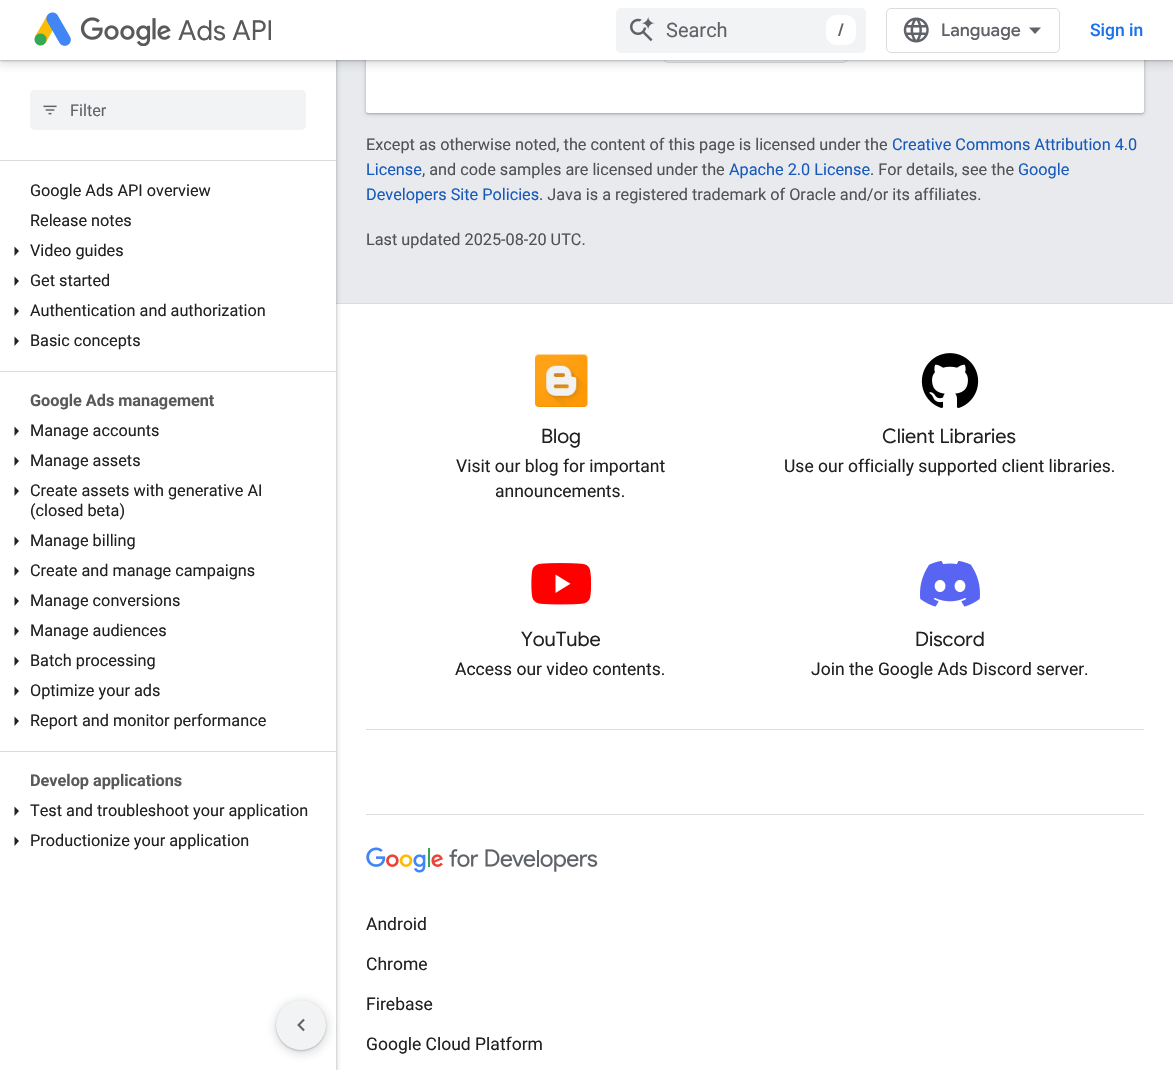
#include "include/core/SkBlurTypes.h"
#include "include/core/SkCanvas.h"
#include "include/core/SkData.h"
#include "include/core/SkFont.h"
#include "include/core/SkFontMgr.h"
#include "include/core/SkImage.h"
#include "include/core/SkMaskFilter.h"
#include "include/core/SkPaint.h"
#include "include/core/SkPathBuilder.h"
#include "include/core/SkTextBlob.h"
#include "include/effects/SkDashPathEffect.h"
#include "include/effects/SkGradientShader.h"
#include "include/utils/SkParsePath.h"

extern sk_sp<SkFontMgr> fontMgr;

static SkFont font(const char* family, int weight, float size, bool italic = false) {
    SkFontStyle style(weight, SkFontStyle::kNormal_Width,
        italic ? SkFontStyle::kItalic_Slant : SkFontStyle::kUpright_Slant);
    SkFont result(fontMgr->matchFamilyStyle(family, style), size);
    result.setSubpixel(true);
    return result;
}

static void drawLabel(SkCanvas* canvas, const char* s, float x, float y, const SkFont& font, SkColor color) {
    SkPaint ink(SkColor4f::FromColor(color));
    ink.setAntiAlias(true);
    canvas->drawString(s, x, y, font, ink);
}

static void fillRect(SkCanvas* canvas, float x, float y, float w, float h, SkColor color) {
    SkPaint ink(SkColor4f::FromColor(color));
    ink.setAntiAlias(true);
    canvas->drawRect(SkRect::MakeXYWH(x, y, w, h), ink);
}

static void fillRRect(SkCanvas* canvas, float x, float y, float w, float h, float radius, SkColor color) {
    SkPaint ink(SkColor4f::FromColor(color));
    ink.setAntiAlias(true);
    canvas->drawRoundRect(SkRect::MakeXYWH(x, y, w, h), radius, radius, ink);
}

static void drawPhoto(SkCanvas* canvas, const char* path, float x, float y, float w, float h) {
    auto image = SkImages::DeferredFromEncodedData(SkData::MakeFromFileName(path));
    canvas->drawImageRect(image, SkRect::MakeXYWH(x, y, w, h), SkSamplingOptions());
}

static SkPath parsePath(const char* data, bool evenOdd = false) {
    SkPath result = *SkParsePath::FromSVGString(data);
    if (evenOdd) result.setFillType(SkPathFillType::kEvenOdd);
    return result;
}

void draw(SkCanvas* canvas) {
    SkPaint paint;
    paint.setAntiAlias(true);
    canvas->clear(0xFFE8EAED);
    fillRect(canvas, 336, 304, 837, 766, 0xFFFFFFFF);
    fillRect(canvas, 336, 303, 837, 1, 0xFFDADCE0);
    paint.setColor(0x263C4043);
    paint.setMaskFilter(SkMaskFilter::MakeBlur(kNormal_SkBlurStyle, 2));
    canvas->drawRect(SkRect::MakeXYWH(-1, 0, 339, 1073), paint);
    paint.setMaskFilter(nullptr);
    paint.setColor(0x4D3C4043);
    paint.setMaskFilter(SkMaskFilter::MakeBlur(kNormal_SkBlurStyle, 1));
    canvas->drawRect(SkRect::MakeXYWH(0, 1, 336, 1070), paint);
    paint.setMaskFilter(nullptr);
    fillRect(canvas, 0, 60, 336, 1010, 0xFFFFFFFF);
    paint.setColor(0x263C4043);
    paint.setMaskFilter(SkMaskFilter::MakeBlur(kNormal_SkBlurStyle, 2));
    canvas->drawRoundRect(SkRect::MakeXYWH(365, -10, 780, 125), 4, 4, paint);
    paint.setMaskFilter(nullptr);
    paint.setColor(0x4D3C4043);
    paint.setMaskFilter(SkMaskFilter::MakeBlur(kNormal_SkBlurStyle, 1));
    canvas->drawRoundRect(SkRect::MakeXYWH(366, -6, 778, 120), 2.5f, 2.5f, paint);
    paint.setMaskFilter(nullptr);
    fillRRect(canvas, 366, -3, 778, 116, 2.5f, 0xFFFFFFFF);
    paint.setStroke(true);
    paint.setStrokeWidth(1);
    paint.setColor(0xFFDADCE0);
    canvas->drawRoundRect(SkRect::MakeXYWH(663.5f, 18.5f, 184, 44), 4.5f, 4.5f, paint);
    paint.setStroke(false);
    paint.setColor(0x263C4043);
    paint.setMaskFilter(SkMaskFilter::MakeBlur(kNormal_SkBlurStyle, 4));
    canvas->drawRect(SkRect::MakeXYWH(-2, 0, 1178, 65), paint);
    paint.setMaskFilter(nullptr);
    paint.setColor(0x4D3C4043);
    paint.setMaskFilter(SkMaskFilter::MakeBlur(kNormal_SkBlurStyle, 1));
    canvas->drawRect(SkRect::MakeXYWH(0, 1, 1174, 60), paint);
    paint.setMaskFilter(nullptr);
    fillRect(canvas, 0, 0, 1173, 60, 0xFFFFFFFF);
    drawPhoto(canvas, "assets/img1.png", 34, 12, 37, 34);
    drawPhoto(canvas, "assets/img2.png", 80, 17, 91, 29);
    SkFont font1 = font("Google Sans", 400, 27.5f);
    drawLabel(canvas, "Ads API", 178, 40, font1, 0xFF595959);
    fillRRect(canvas, 616, 8, 250, 45, 5, 0xFFF1F3F4);
    drawPhoto(canvas, "assets/img3.png", 630, 16, 25, 26);
    SkFont font2 = font("Roboto", 400, 20);
    drawLabel(canvas, "Search", 666, 37, font2, 0xFF5F6368);
    fillRRect(canvas, 826, 15, 30, 30, 10, 0xFFFFFFFF);
    SkFont font3 = font("Google Sans", 500, 17.5f);
    drawLabel(canvas, "/", 838, 36, font3, 0xFF5F6368);
    paint.setStroke(true);
    paint.setColor(0xFFDADCE0);
    canvas->drawRoundRect(SkRect::MakeXYWH(886.5f, 8.5f, 173, 44), 4.5f, 4.5f, paint);
    drawPhoto(canvas, "assets/img4.png", 903, 17, 26, 26);
    drawLabel(canvas, "Language", 941, 36, font3, 0xFF5F6368);
    paint.setStroke(false);
    paint.setColor(0xFF5F6368);
    canvas->drawPath(parsePath("M1035 34L1029 27.5H1041Z"), paint);
    SkFont font4 = font("Roboto", 500, 17.5f);
    drawLabel(canvas, "Sign in", 1090, 36, font4, 0xFF1A73E8);
    fillRect(canvas, 0, 160, 336, 1, 0xFFDADCE0);
    fillRRect(canvas, 30, 90, 276, 40, 5, 0xFFF1F3F4);
    drawPhoto(canvas, "assets/img5.png", 43, 105, 14, 10);
    SkFont font5 = font("Roboto", 400, 16.25f);
    drawLabel(canvas, "Filter", 70, 116, font5, 0xFF5F6368);
    drawLabel(canvas, "Google Ads API overview", 30, 196, font5, 0xFF212121);
    drawLabel(canvas, "Release notes", 30, 226, font5, 0xFF212121);
    paint.setColor(0xFF202124);
    canvas->drawPath(parsePath("M14.5 256V246.5L19 251Z"), paint);
    drawLabel(canvas, "Video guides", 30, 256, font5, 0xFF212121);
    canvas->drawPath(parsePath("M14.5 286V276.5L19 281Z"), paint);
    drawLabel(canvas, "Get started", 30, 286, font5, 0xFF212121);
    canvas->drawPath(parsePath("M14.5 316V306.5L19 311Z"), paint);
    drawLabel(canvas, "Authentication and authorization", 30, 316, font5, 0xFF212121);
    canvas->drawPath(parsePath("M14.5 346V336.5L19 341Z"), paint);
    drawLabel(canvas, "Basic concepts", 30, 346, font5, 0xFF212121);
    fillRect(canvas, 0, 371, 336, 1, 0xFFDADCE0);
    SkFont font6 = font("Roboto", 700, 16.25f);
    drawLabel(canvas, "Google Ads management", 30, 406, font6, 0xFF595959);
    canvas->drawPath(parsePath("M14.5 436V426.5L19 431Z"), paint);
    drawLabel(canvas, "Manage accounts", 30, 436, font5, 0xFF212121);
    canvas->drawPath(parsePath("M14.5 466V456.5L19 461Z"), paint);
    drawLabel(canvas, "Manage assets", 30, 466, font5, 0xFF212121);
    canvas->drawPath(parsePath("M14.5 496V486.5L19 491Z"), paint);
    drawLabel(canvas, "Create assets with generative AI", 30, 496, font5, 0xFF212121);
    drawLabel(canvas, "(closed beta)", 30, 516, font5, 0xFF212121);
    canvas->drawPath(parsePath("M14.5 546V536.5L19 541Z"), paint);
    drawLabel(canvas, "Manage billing", 30, 546, font5, 0xFF212121);
    canvas->drawPath(parsePath("M14.5 576V566.5L19 571Z"), paint);
    drawLabel(canvas, "Create and manage campaigns", 30, 576, font5, 0xFF212121);
    canvas->drawPath(parsePath("M14.5 606V596.5L19 601Z"), paint);
    drawLabel(canvas, "Manage conversions", 30, 606, font5, 0xFF212121);
    canvas->drawPath(parsePath("M14.5 636V626.5L19 631Z"), paint);
    drawLabel(canvas, "Manage audiences", 30, 636, font5, 0xFF212121);
    canvas->drawPath(parsePath("M14.5 666V656.5L19 661Z"), paint);
    drawLabel(canvas, "Batch processing", 30, 666, font5, 0xFF212121);
    canvas->drawPath(parsePath("M14.5 696V686.5L19 691Z"), paint);
    drawLabel(canvas, "Optimize your ads", 30, 696, font5, 0xFF212121);
    canvas->drawPath(parsePath("M14.5 726V716.5L19 721Z"), paint);
    drawLabel(canvas, "Report and monitor performance", 30, 726, font5, 0xFF212121);
    fillRect(canvas, 0, 751, 336, 1, 0xFFDADCE0);
    drawLabel(canvas, "Develop applications", 30, 786, font6, 0xFF595959);
    canvas->drawPath(parsePath("M14.5 816V806.5L19 811Z"), paint);
    drawLabel(canvas, "Test and troubleshoot your application", 30, 816, font5, 0xFF212121);
    canvas->drawPath(parsePath("M14.5 846V836.5L19 841Z"), paint);
    drawLabel(canvas, "Productionize your application", 30, 846, font5, 0xFF212121);
    drawLabel(canvas, "Except as otherwise noted, the content of this page is licensed under the", 366, 150, font5, 0xFF515253);
    drawLabel(canvas, "Creative Commons Attribution 4.0", 892, 150, font5, 0xFF185ABC);
    drawLabel(canvas, "License", 366, 175, font5, 0xFF185ABC);
    drawLabel(canvas, ", and code samples are licensed under the", 422, 175, font5, 0xFF515253);
    drawLabel(canvas, "Apache 2.0 License", 729, 175, font5, 0xFF185ABC);
    drawLabel(canvas, ". For details, see the", 870, 175, font5, 0xFF515253);
    drawLabel(canvas, "Google", 1018, 175, font5, 0xFF185ABC);
    drawLabel(canvas, "Developers Site Policies", 366, 200, font5, 0xFF185ABC);
    drawLabel(canvas, ". Java is a registered trademark of Oracle and/or its affiliates.", 539, 200, font5, 0xFF515253);
    drawLabel(canvas, "Last updated 2025-08-20 UTC.", 366, 245, font5, 0xFF515253);
    fillRect(canvas, 366, 729, 778, 1, 0xFFDADCE0);
    drawPhoto(canvas, "assets/img6.png", 535, 354, 53, 53);
    SkFont font7 = font("Google Sans", 400, 20);
    drawLabel(canvas, "Blog", 541, 443, font7, 0xFF212121);
    SkFont font8 = font("Roboto", 400, 17.5f);
    drawLabel(canvas, "Visit our blog for important", 456, 472, font8, 0xFF212121);
    drawLabel(canvas, "announcements.", 495, 497, font8, 0xFF212121);
    drawPhoto(canvas, "assets/img7.png", 921, 353, 58, 55);
    drawLabel(canvas, "Client Libraries", 882, 443, font7, 0xFF212121);
    drawLabel(canvas, "Use our officially supported client libraries.", 784, 472, font8, 0xFF212121);
    drawPhoto(canvas, "assets/img8.png", 531, 563, 60, 42);
    drawLabel(canvas, "YouTube", 521, 646, font7, 0xFF212121);
    drawLabel(canvas, "Access our video contents.", 455, 675, font8, 0xFF212121);
    drawPhoto(canvas, "assets/img9.png", 920, 561, 60, 46);
    drawLabel(canvas, "Discord", 915, 646, font7, 0xFF212121);
    drawLabel(canvas, "Join the Google Ads Discord server.", 811, 675, font8, 0xFF212121);
    fillRect(canvas, 366, 814, 778, 1, 0xFFDADCE0);
    drawPhoto(canvas, "assets/img10.png", 366, 847, 232, 26);
    drawLabel(canvas, "Android", 366, 930, font8, 0xFF212121);
    drawLabel(canvas, "Chrome", 366, 970, font8, 0xFF212121);
    drawLabel(canvas, "Firebase", 366, 1010, font8, 0xFF212121);
    drawLabel(canvas, "Google Cloud Platform", 366, 1050, font8, 0xFF212121);
    paint.setColor(0x263C4043);
    paint.setMaskFilter(SkMaskFilter::MakeBlur(kNormal_SkBlurStyle, 4));
    canvas->drawRoundRect(SkRect::MakeXYWH(274, 1000, 55, 55), 27.5f, 27.5f, paint);
    paint.setMaskFilter(nullptr);
    paint.setColor(0x4D3C4043);
    paint.setMaskFilter(SkMaskFilter::MakeBlur(kNormal_SkBlurStyle, 1));
    canvas->drawRoundRect(SkRect::MakeXYWH(276, 1001, 50, 50), 25, 25, paint);
    paint.setMaskFilter(nullptr);
    paint.setColor(0xFFF1F3F4);
    canvas->drawCircle(301, 1025, 25, paint);
    drawPhoto(canvas, "assets/img11.png", 297, 1018, 8, 14);
}
